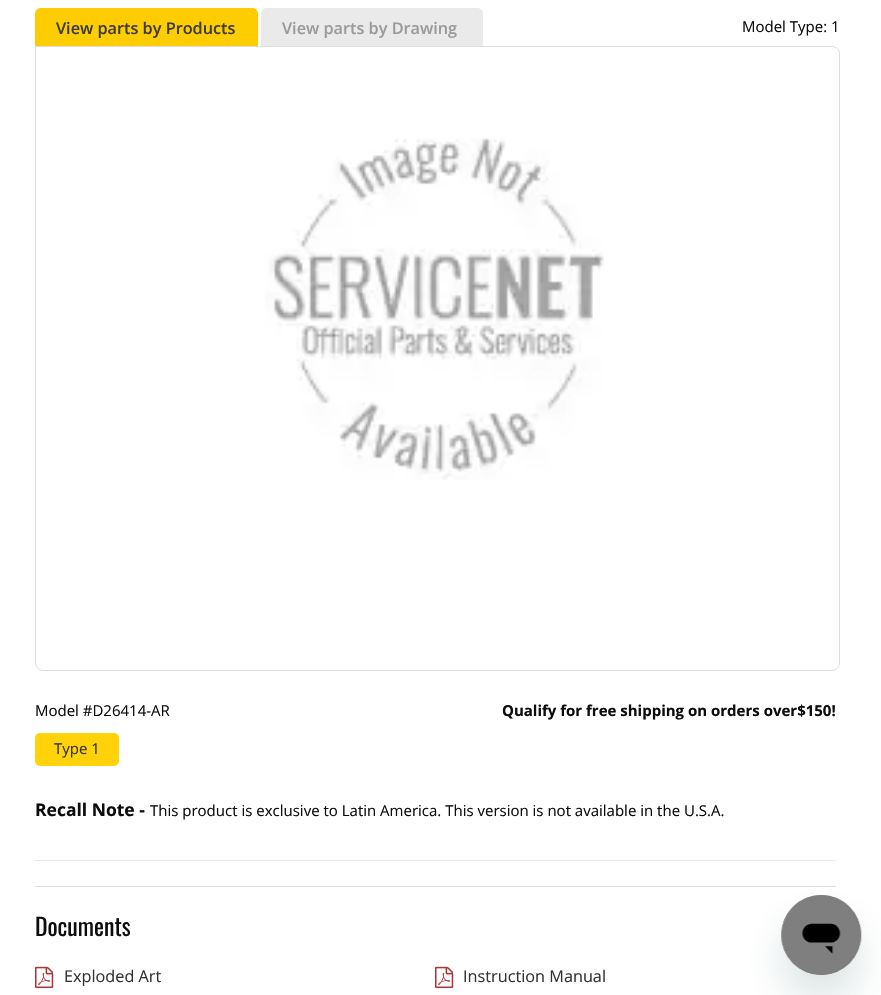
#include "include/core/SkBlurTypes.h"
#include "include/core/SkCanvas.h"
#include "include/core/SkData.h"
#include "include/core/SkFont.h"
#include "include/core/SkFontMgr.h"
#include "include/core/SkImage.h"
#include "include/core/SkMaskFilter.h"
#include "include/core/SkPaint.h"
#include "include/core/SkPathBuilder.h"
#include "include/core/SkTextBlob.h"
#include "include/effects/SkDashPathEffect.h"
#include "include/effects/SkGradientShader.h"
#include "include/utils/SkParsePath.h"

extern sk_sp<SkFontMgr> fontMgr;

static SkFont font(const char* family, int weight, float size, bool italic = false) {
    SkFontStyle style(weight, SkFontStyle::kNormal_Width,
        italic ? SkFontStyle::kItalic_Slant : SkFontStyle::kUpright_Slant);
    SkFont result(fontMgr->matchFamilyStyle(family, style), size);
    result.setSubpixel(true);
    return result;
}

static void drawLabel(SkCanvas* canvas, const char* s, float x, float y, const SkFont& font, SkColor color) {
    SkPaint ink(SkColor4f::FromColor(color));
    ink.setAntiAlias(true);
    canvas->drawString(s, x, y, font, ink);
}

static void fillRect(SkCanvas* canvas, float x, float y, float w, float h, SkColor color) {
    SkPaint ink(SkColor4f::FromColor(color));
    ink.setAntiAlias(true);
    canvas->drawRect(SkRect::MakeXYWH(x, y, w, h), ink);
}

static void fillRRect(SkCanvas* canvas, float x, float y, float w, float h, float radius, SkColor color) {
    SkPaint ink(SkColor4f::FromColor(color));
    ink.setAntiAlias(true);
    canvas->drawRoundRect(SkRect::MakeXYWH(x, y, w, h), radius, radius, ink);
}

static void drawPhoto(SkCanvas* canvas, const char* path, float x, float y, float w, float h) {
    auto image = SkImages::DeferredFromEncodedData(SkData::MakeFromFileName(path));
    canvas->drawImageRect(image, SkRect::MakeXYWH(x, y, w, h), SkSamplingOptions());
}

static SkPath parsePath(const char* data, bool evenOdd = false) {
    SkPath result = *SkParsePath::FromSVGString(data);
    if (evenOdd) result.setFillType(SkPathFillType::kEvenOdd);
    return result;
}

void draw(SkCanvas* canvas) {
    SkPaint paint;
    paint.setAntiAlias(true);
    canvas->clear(0xFFFFFFFF);
    paint.setColor(0xFFFDCC01);
    canvas->drawPath(parsePath("M41 8H252C255.5 8 258 10.5 258 14V49H35V14C35 10.5 37.5 8 41 8Z"), paint);
    SkFont font1 = font("Open Sans", 600, 16.25f);
    drawLabel(canvas, "View parts by Products", 56, 34, font1, 0xFF3C3C3C);
    paint.setColor(0xFFEAEAEA);
    canvas->drawPath(parsePath("M267 8H477C480.5 8 483 10.5 483 14V49H261V14C261 10.5 263.5 8 267 8Z"), paint);
    drawLabel(canvas, "View parts by Drawing", 282, 34, font1, 0xFF9A9A9A);
    SkFont font2 = font("Open Sans", 400, 15);
    drawLabel(canvas, "Model Type: 1", 742, 32, font2, 0xFF0D0D0D);
    paint.setColor(0xFFFFFFFF);
    canvas->drawPath(parsePath("M35.5 46.5H832C836 46.5 839.5 50 839.5 54V663C839.5 667 836 670.5 832 670.5H43C39 670.5 35.5 667 35.5 663Z"), paint);
    paint.setStroke(true);
    paint.setStrokeWidth(1);
    paint.setColor(0xFFDDDDDD);
    canvas->drawPath(parsePath("M35.5 46.5H832C836 46.5 839.5 50 839.5 54V663C839.5 667 836 670.5 832 670.5H43C39 670.5 35.5 667 35.5 663Z"), paint);
    drawPhoto(canvas, "assets/img1.png", 265, 138, 339, 342);
    drawLabel(canvas, "Model #D26414-AR", 35, 716, font2, 0xFF0D0D0D);
    SkFont font3 = font("Open Sans", 700, 15);
    drawLabel(canvas, "Qualify for free shipping on orders over$150!", 502, 716, font3, 0xFF0D0D0D);
    fillRRect(canvas, 35, 733, 84, 33, 5, 0xFFFFD20A);
    drawLabel(canvas, "Type 1", 54, 754, font2, 0xFF333333);
    SkFont font4 = font("Open Sans", 700, 17.5f);
    drawLabel(canvas, "Recall Note -", 35, 816, font4, 0xFF0D0D0D);
    drawLabel(canvas, "This product is exclusive to Latin America. This version is not available in the U.S.A.", 150, 816, font2, 0xFF0D0D0D);
    fillRect(canvas, 35, 860, 801, 1, 0xFFEAEAEA);
    fillRect(canvas, 35, 886, 801, 1, 0xFFDDDDDD);
    SkFont font5 = font("Oswald", 400, 23.75f);
    drawLabel(canvas, "Documents", 35, 936, font5, 0xFF0D0D0D);
    drawPhoto(canvas, "assets/img2.png", 35, 966, 19, 23);
    SkFont font6 = font("Open Sans", 400, 16.25f);
    drawLabel(canvas, "Exploded Art", 64, 982, font6, 0xFF333333);
    drawPhoto(canvas, "assets/img2.png", 435, 966, 19, 23);
    drawLabel(canvas, "Instruction Manual", 463, 982, font6, 0xFF333333);
    paint.setStroke(false);
    paint.setColor(0x2617494D);
    paint.setMaskFilter(SkMaskFilter::MakeBlur(kNormal_SkBlurStyle, 19));
    canvas->drawRoundRect(SkRect::MakeXYWH(781, 920, 80, 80), 40, 40, paint);
    paint.setMaskFilter(nullptr);
    drawPhoto(canvas, "assets/img3.png", 781, 895, 81, 80);
}
